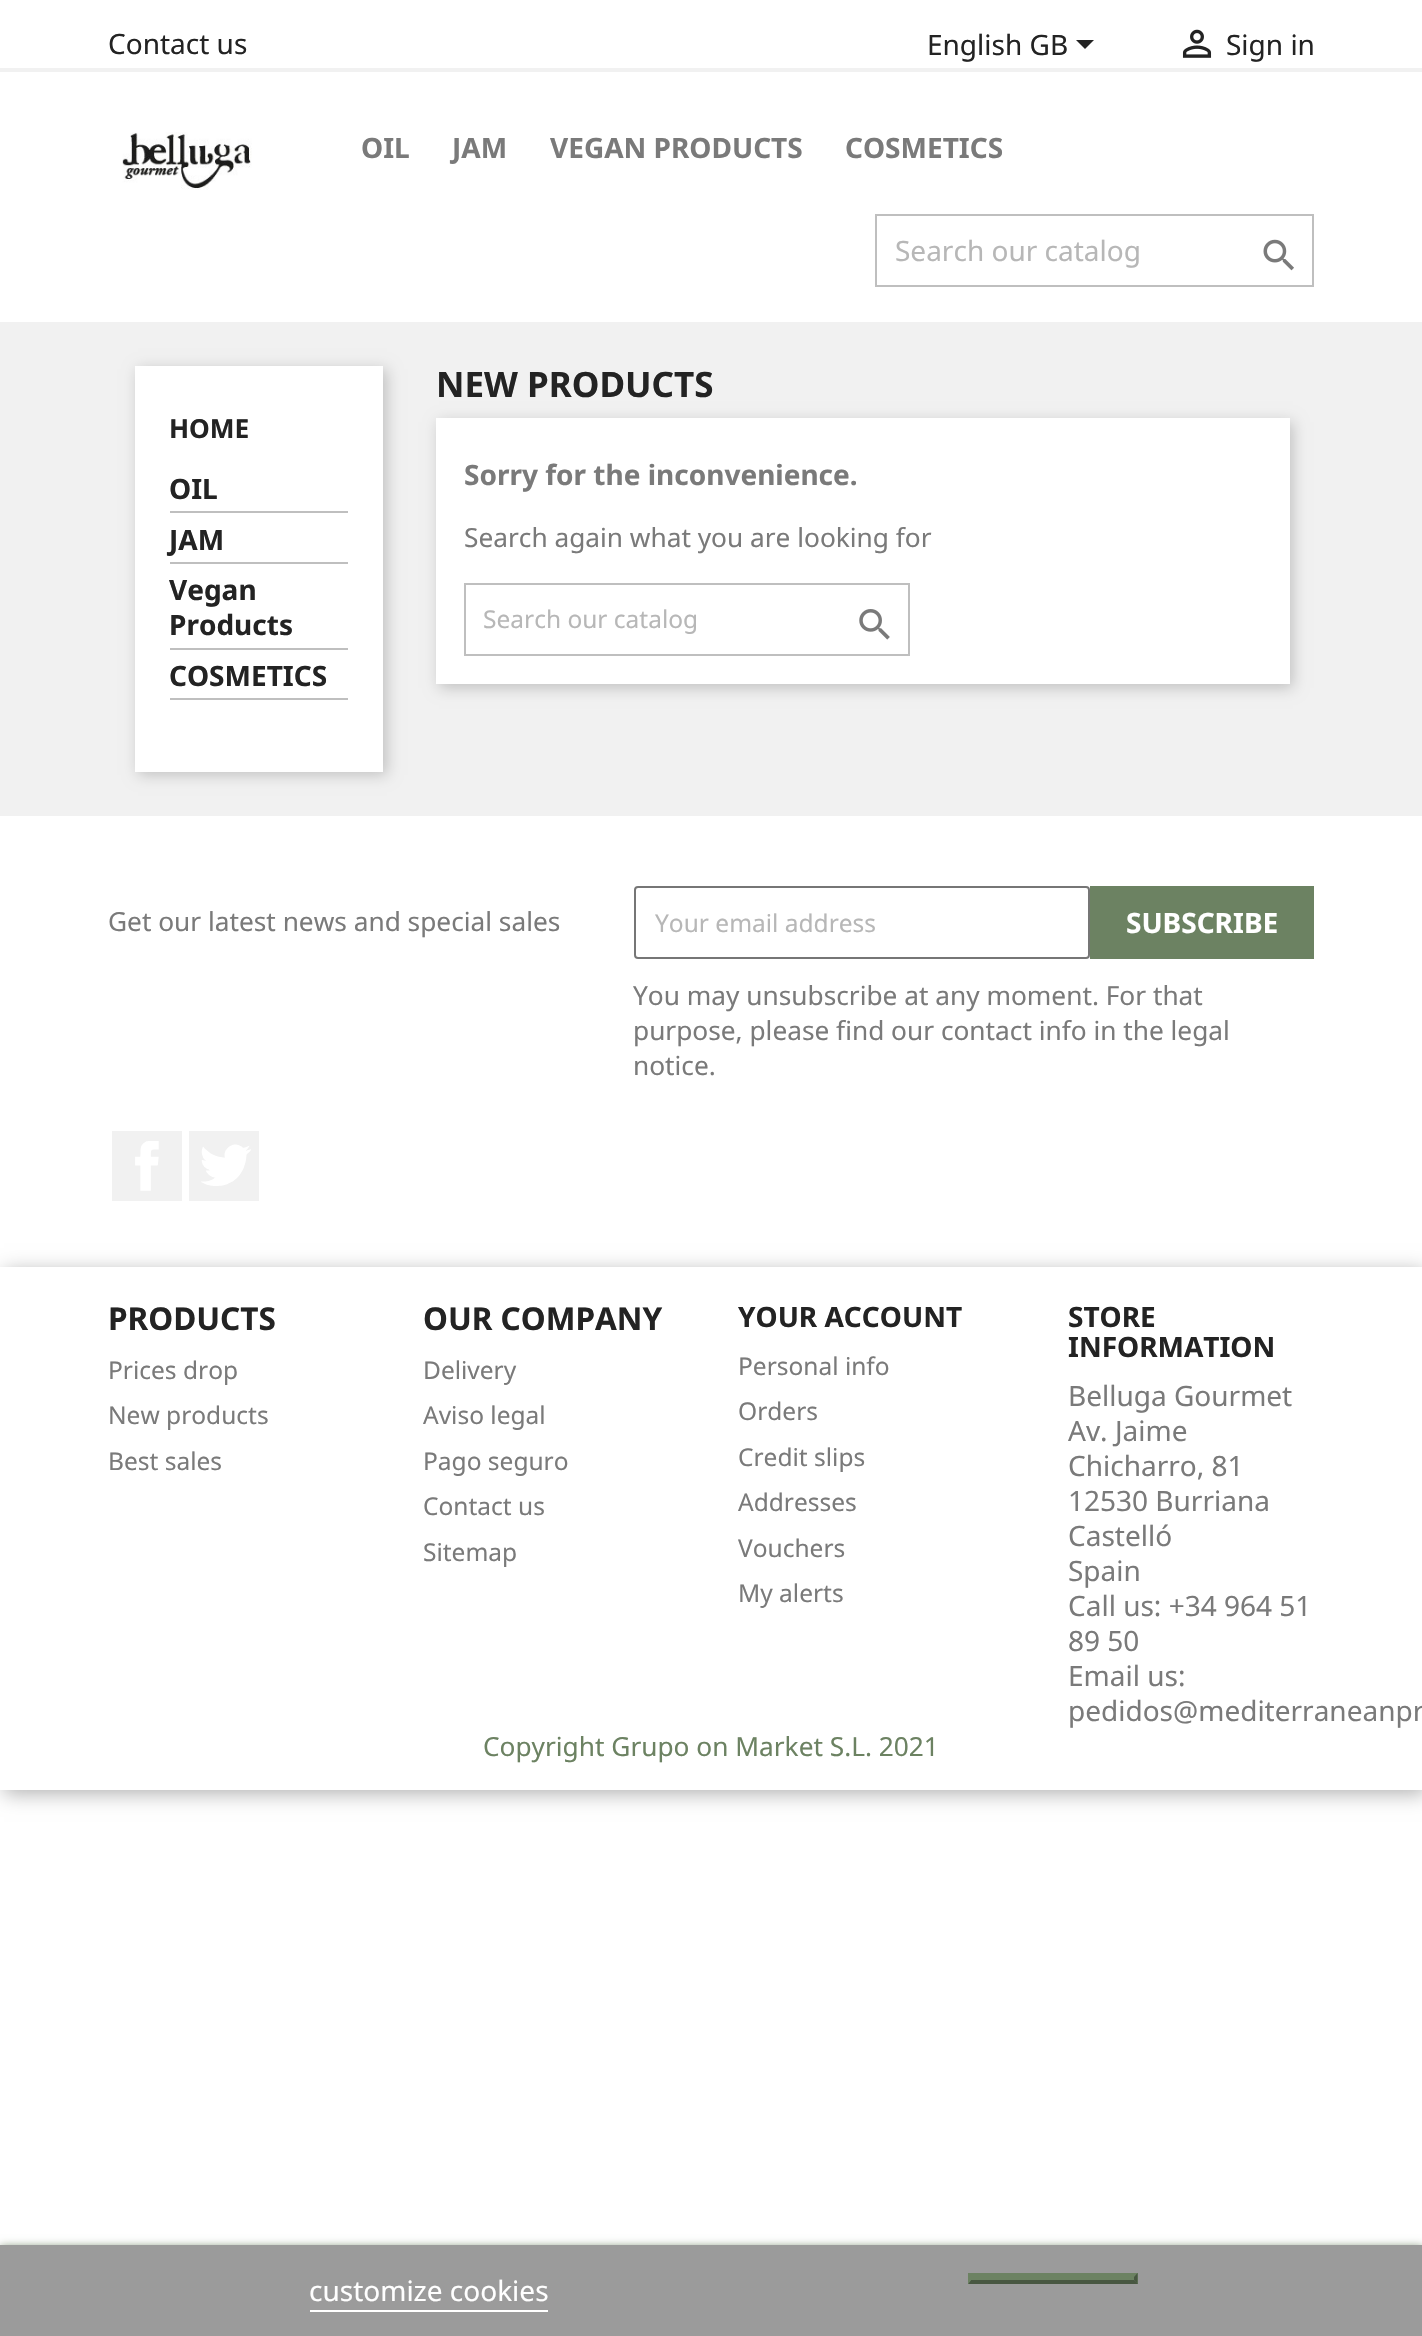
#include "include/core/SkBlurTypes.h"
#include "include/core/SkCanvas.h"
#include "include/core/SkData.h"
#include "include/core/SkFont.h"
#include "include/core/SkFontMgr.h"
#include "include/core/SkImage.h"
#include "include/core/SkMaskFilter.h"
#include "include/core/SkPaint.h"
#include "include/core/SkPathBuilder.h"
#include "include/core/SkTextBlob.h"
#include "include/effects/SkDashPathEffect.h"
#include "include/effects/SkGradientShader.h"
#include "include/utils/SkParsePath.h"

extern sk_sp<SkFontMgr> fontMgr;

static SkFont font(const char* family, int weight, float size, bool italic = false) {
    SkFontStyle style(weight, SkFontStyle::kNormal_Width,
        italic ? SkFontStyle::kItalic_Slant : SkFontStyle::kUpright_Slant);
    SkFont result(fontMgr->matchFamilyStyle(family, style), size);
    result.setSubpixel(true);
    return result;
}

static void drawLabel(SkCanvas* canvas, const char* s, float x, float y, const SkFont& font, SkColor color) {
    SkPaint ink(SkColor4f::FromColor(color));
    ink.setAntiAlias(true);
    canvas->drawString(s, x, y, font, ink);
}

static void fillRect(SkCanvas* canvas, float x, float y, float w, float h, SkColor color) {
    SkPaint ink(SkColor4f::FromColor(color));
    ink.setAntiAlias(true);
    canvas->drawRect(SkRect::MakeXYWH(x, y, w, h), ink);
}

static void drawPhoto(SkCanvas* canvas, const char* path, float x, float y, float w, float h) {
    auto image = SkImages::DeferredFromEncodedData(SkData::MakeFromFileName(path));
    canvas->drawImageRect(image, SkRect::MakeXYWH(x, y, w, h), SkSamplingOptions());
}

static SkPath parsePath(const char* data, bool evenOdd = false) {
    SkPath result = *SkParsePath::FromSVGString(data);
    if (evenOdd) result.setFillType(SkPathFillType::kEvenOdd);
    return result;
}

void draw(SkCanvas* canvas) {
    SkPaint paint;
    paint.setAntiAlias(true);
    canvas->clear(0xFFFFFFFF);
    fillRect(canvas, 0, 68, 1422, 4, 0xFFF1F1F1);
    SkFont font1 = font("Noto Sans", 400, 28);
    drawLabel(canvas, "Contact us", 108, 54, font1, 0xFF232323);
    drawLabel(canvas, "English GB", 927, 55, font1, 0xFF232323);
    paint.setColor(0xFF232323);
    canvas->drawPath(parsePath("M1076 40H1094L1085 49Z"), paint);
    drawPhoto(canvas, "assets/img1.png", 1182, 29, 30, 29);
    drawLabel(canvas, "Sign in", 1226, 55, font1, 0xFF232323);
    drawPhoto(canvas, "assets/img2.png", 122, 132, 130, 58);
    SkFont font2 = font("Noto Sans", 700, 28);
    drawLabel(canvas, "OIL", 361, 158, font2, 0xFF7A7A7A);
    drawLabel(canvas, "JAM", 452, 158, font2, 0xFF7A7A7A);
    drawLabel(canvas, "VEGAN PRODUCTS", 550, 158, font2, 0xFF7A7A7A);
    drawLabel(canvas, "COSMETICS", 845, 158, font2, 0xFF7A7A7A);
    paint.setStroke(true);
    paint.setStrokeWidth(2);
    paint.setColor(0xFFBFBFBF);
    canvas->drawRect(SkRect::MakeXYWH(876, 215, 437, 71), paint);
    drawLabel(canvas, "Search our catalog", 895, 261, font1, 0xFFB7B7B7);
    drawPhoto(canvas, "assets/img3.png", 1263, 239, 31, 32);
    fillRect(canvas, 0, 322, 1422, 494, 0xFFF1F1F1);
    paint.setStroke(false);
    paint.setColor(0x33000000);
    paint.setMaskFilter(SkMaskFilter::MakeBlur(kNormal_SkBlurStyle, 7));
    canvas->drawRect(SkRect::MakeXYWH(138, 369, 249, 406), paint);
    paint.setMaskFilter(nullptr);
    fillRect(canvas, 135, 366, 248, 406, 0xFFFFFFFF);
    SkFont font3 = font("Noto Sans", 700, 26.25f);
    drawLabel(canvas, "HOME", 169, 438, font3, 0xFF232323);
    fillRect(canvas, 170, 511, 178, 2, 0xFFBFBFBF);
    drawLabel(canvas, "OIL", 169, 499, font2, 0xFF232323);
    fillRect(canvas, 170, 562, 178, 2, 0xFFBFBFBF);
    drawLabel(canvas, "JAM", 169, 550, font2, 0xFF232323);
    fillRect(canvas, 170, 648, 178, 2, 0xFFBFBFBF);
    drawLabel(canvas, "Vegan", 169, 600, font2, 0xFF232323);
    drawLabel(canvas, "Products", 169, 635, font2, 0xFF232323);
    fillRect(canvas, 170, 698, 178, 2, 0xFFBFBFBF);
    drawLabel(canvas, "COSMETICS", 169, 686, font2, 0xFF232323);
    SkFont font4 = font("Noto Sans", 700, 35);
    drawLabel(canvas, "NEW PRODUCTS", 436, 397, font4, 0xFF232323);
    paint.setMaskFilter(SkMaskFilter::MakeBlur(kNormal_SkBlurStyle, 7));
    canvas->drawRect(SkRect::MakeXYWH(439, 422, 854, 266), paint);
    paint.setMaskFilter(nullptr);
    fillRect(canvas, 436, 418, 854, 266, 0xFFFFFFFF);
    drawLabel(canvas, "Sorry for the inconvenience.", 464, 485, font2, 0xFF7A7A7A);
    SkFont font5 = font("Noto Sans", 400, 26.25f);
    drawLabel(canvas, "Search again what you are looking for", 464, 547, font5, 0xFF7A7A7A);
    paint.setStroke(true);
    paint.setColor(0xFFBFBFBF);
    canvas->drawRect(SkRect::MakeXYWH(465, 584, 444, 71), paint);
    SkFont font6 = font("Noto Sans", 400, 24.5f);
    drawLabel(canvas, "Search our catalog", 483, 628, font6, 0xFFB7B7B7);
    drawPhoto(canvas, "assets/img4.png", 859, 609, 31, 31);
    drawLabel(canvas, "Get our latest news and special sales", 108, 931, font5, 0xFF7A7A7A);
    paint.setColor(0xFF767676);
    canvas->drawRoundRect(SkRect::MakeXYWH(635, 887, 454, 71), 3, 3, paint);
    drawLabel(canvas, "Your email address", 655, 932, font6, 0xFFB7B7B7);
    fillRect(canvas, 1090, 886, 224, 73, 0xFF6C8262);
    drawLabel(canvas, "SUBSCRIBE", 1126, 933, font2, 0xFFFFFFFF);
    drawLabel(canvas, "You may unsubscribe at any moment. For that", 633, 1005, font5, 0xFF7A7A7A);
    drawLabel(canvas, "purpose, please find our contact info in the legal", 633, 1040, font5, 0xFF7A7A7A);
    drawLabel(canvas, "notice.", 633, 1075, font5, 0xFF7A7A7A);
    fillRect(canvas, 112, 1131, 70, 70, 0xFFF1F1F1);
    drawPhoto(canvas, "assets/img5.png", 135, 1141, 24, 50);
    fillRect(canvas, 189, 1131, 70, 70, 0xFFF1F1F1);
    drawPhoto(canvas, "assets/img6.png", 201, 1144, 50, 42);
    canvas->save();
    canvas->clipPath(parsePath("M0 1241H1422V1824H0ZM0 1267H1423V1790H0Z", true), true);
    paint.setStroke(false);
    paint.setColor(0x4D000000);
    paint.setMaskFilter(SkMaskFilter::MakeBlur(kNormal_SkBlurStyle, 9.5f));
    canvas->drawRect(SkRect::MakeXYWH(4, 1271, 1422, 523), paint);
    paint.setMaskFilter(nullptr);
    canvas->restore();
    SkFont font7 = font("Noto Sans", 700, 31.5f);
    drawLabel(canvas, "PRODUCTS", 108, 1330, font7, 0xFF232323);
    drawLabel(canvas, "Prices drop", 108, 1379, font6, 0xFF7A7A7A);
    drawLabel(canvas, "New products", 108, 1424, font6, 0xFF7A7A7A);
    drawLabel(canvas, "Best sales", 108, 1470, font6, 0xFF7A7A7A);
    drawLabel(canvas, "OUR COMPANY", 423, 1330, font7, 0xFF232323);
    drawLabel(canvas, "Delivery", 423, 1379, font6, 0xFF7A7A7A);
    drawLabel(canvas, "Aviso legal", 423, 1424, font6, 0xFF7A7A7A);
    drawLabel(canvas, "Pago seguro", 423, 1470, font6, 0xFF7A7A7A);
    drawLabel(canvas, "Contact us", 423, 1515, font6, 0xFF7A7A7A);
    drawLabel(canvas, "Sitemap", 423, 1561, font6, 0xFF7A7A7A);
    drawLabel(canvas, "YOUR ACCOUNT", 738, 1327, font2, 0xFF232323);
    drawLabel(canvas, "Personal info", 738, 1375, font6, 0xFF7A7A7A);
    drawLabel(canvas, "Orders", 738, 1420, font6, 0xFF7A7A7A);
    drawLabel(canvas, "Credit slips", 738, 1466, font6, 0xFF7A7A7A);
    drawLabel(canvas, "Addresses", 738, 1511, font6, 0xFF7A7A7A);
    drawLabel(canvas, "Vouchers", 738, 1557, font6, 0xFF7A7A7A);
    drawLabel(canvas, "My alerts", 738, 1602, font6, 0xFF7A7A7A);
    drawLabel(canvas, "STORE", 1068, 1327, font2, 0xFF232323);
    drawLabel(canvas, "INFORMATION", 1068, 1357, font2, 0xFF232323);
    drawLabel(canvas, "Belluga Gourmet", 1068, 1406, font1, 0xFF7A7A7A);
    drawLabel(canvas, "Av. Jaime", 1068, 1441, font1, 0xFF7A7A7A);
    drawLabel(canvas, "Chicharro, 81", 1068, 1476, font1, 0xFF7A7A7A);
    drawLabel(canvas, "12530 Burriana", 1068, 1511, font1, 0xFF7A7A7A);
    drawLabel(canvas, "Castelló", 1068, 1546, font1, 0xFF7A7A7A);
    drawLabel(canvas, "Spain", 1068, 1581, font1, 0xFF7A7A7A);
    drawLabel(canvas, "Call us: +34 964 51", 1068, 1616, font1, 0xFF7A7A7A);
    drawLabel(canvas, "89 50", 1068, 1651, font1, 0xFF7A7A7A);
    drawLabel(canvas, "Email us:", 1068, 1686, font1, 0xFF7A7A7A);
    drawLabel(canvas, "pedidos@mediterraneanpr", 1068, 1721, font1, 0xFF7A7A7A);
    canvas->save();
    canvas->clipPath(parsePath("M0 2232H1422V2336H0ZM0 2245H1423V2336H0Z", true), true);
    paint.setColor(0xFF6C8262);
    paint.setMaskFilter(SkMaskFilter::MakeBlur(kNormal_SkBlurStyle, 4.5f));
    canvas->drawRect(SkRect::MakeXYWH(0, 2247, 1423, 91), paint);
    paint.setMaskFilter(nullptr);
    canvas->restore();
    fillRect(canvas, 0, 2245, 1422, 91, 0xB3707070);
    drawLabel(canvas, "customize cookies", 309, 2301, font1, 0xFFFFFFFF);
    fillRect(canvas, 310, 2310, 238, 2, 0xFFFFFFFF);
    fillRect(canvas, 968, 2273, 170, 11, 0xFF6C8262);
    paint.setColor(0xFF485741);
    canvas->drawPath(parsePath("M1137.5 2273V2284L1134 2280V2277Z"), paint);
    canvas->drawPath(parsePath("M1138 2284H968L971 2280H1134Z"), paint);
    paint.setColor(0xFF6C8262);
    canvas->drawPath(parsePath("M968 2284V2273L971 2277V2280Z"), paint);
    drawLabel(canvas, "Copyright Grupo on Market S.L. 2021", 483, 1756, font5, 0xFF6C8262);
}
